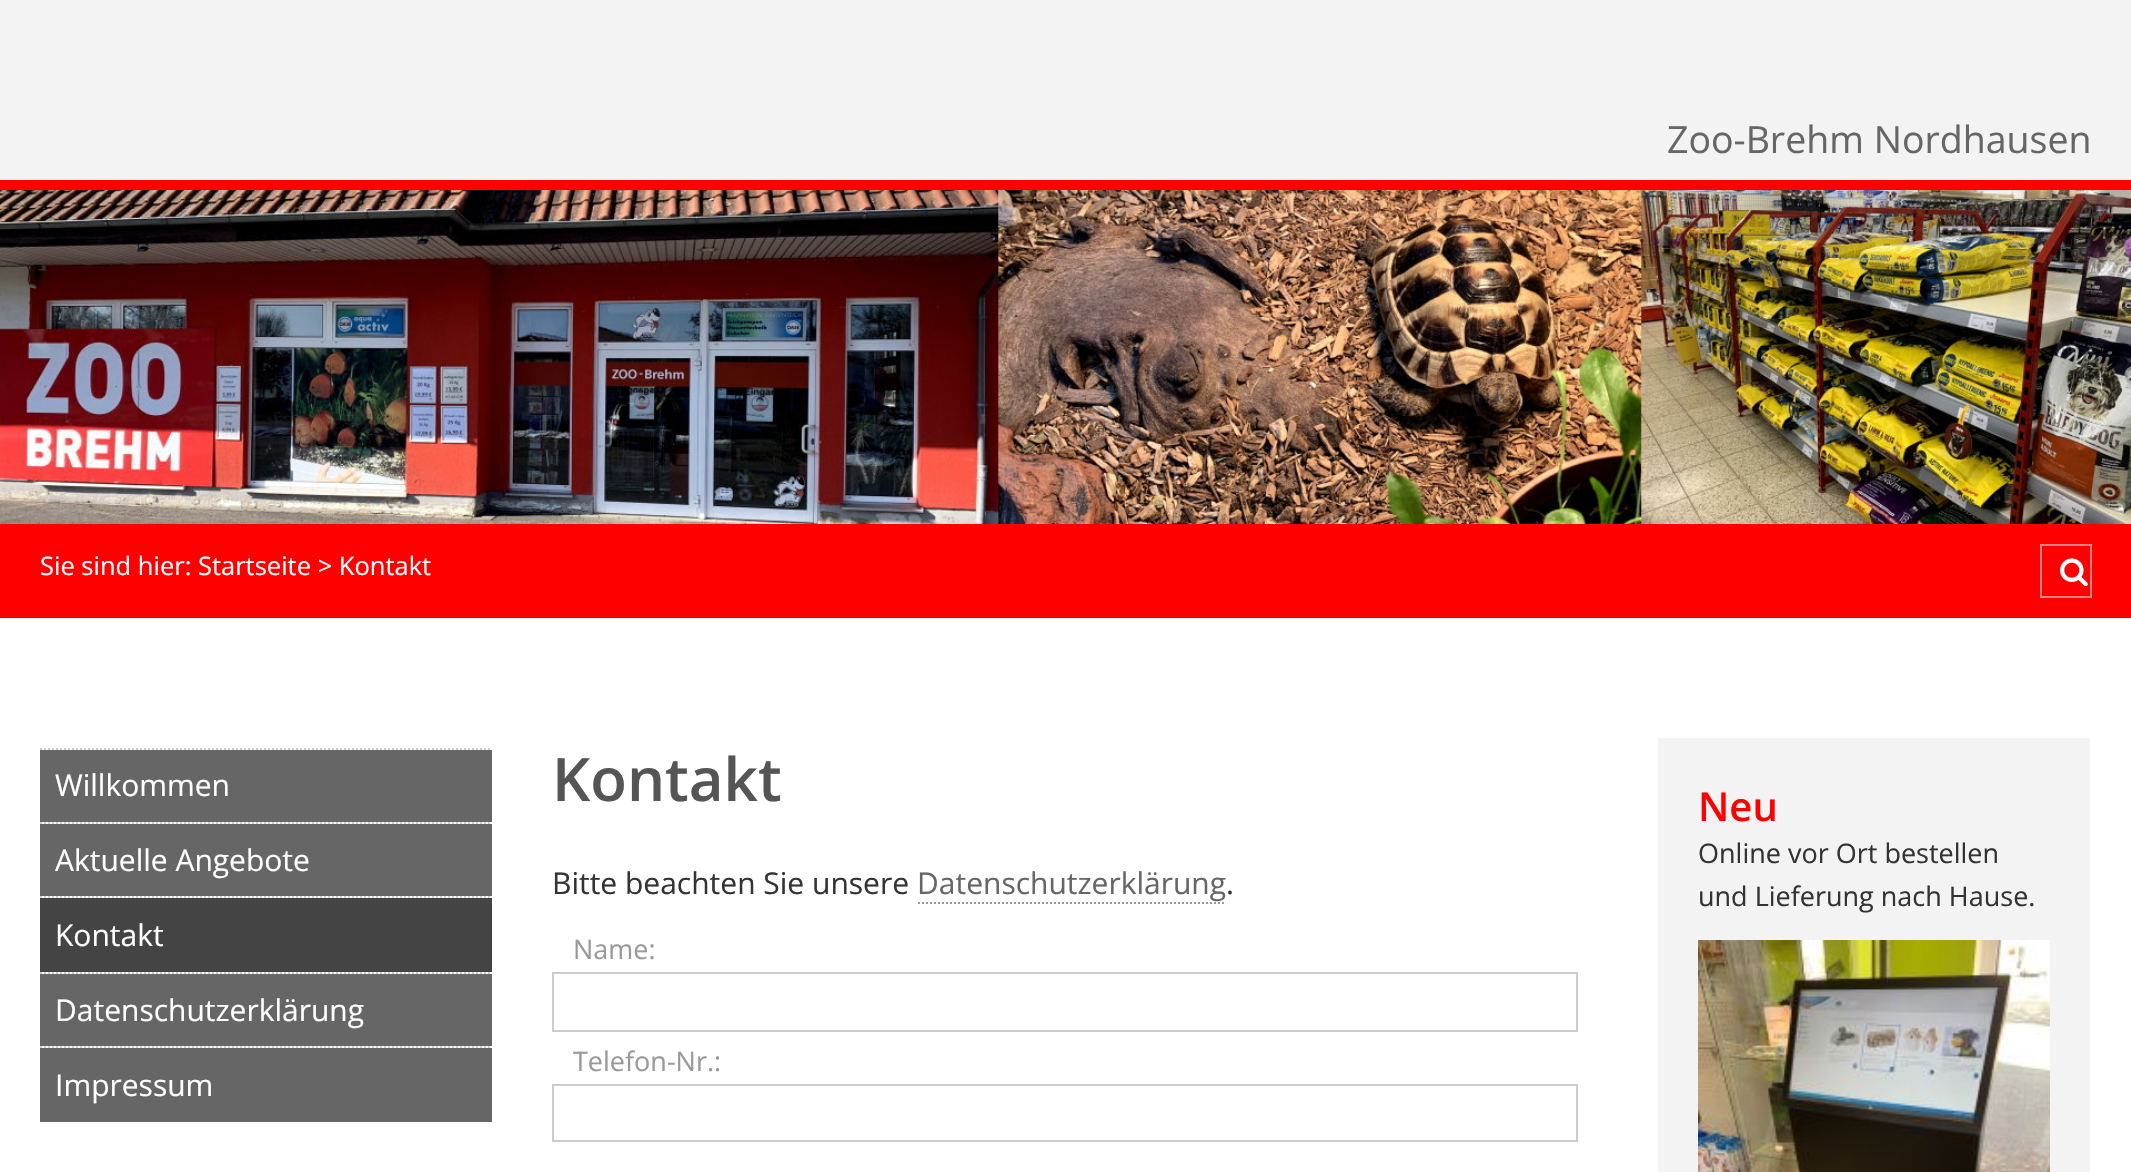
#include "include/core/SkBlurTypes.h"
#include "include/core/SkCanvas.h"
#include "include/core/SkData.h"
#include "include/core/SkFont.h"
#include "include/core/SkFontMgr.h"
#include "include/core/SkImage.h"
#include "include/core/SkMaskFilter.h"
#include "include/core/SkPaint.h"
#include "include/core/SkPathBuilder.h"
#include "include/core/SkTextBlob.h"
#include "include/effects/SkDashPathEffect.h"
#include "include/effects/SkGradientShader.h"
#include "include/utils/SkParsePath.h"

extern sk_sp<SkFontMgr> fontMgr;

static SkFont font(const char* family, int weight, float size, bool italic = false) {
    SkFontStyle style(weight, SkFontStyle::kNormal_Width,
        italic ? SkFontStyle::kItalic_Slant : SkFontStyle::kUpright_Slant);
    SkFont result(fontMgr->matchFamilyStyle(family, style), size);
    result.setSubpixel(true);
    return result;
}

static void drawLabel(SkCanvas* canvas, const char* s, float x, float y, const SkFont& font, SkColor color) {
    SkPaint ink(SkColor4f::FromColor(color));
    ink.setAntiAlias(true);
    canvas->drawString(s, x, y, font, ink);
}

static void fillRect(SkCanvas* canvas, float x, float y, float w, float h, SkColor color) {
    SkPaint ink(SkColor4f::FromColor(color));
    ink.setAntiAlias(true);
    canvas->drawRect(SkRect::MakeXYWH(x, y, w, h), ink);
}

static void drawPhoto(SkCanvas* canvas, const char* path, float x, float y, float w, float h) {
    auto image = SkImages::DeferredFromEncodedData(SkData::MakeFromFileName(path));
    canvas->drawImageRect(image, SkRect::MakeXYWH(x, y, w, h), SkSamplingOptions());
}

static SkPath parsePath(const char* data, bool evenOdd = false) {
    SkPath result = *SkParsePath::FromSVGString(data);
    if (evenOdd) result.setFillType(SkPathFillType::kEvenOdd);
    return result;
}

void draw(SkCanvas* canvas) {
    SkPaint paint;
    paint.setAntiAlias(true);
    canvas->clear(0xFFFFFFFF);
    fillRect(canvas, 0, 0, 2131, 180, 0xFFF3F3F3);
    fillRect(canvas, 0, 180, 2131, 10, 0xFFFF0000);
    SkFont font1 = font("Open Sans", 400, 37.5f);
    drawLabel(canvas, "Zoo-Brehm Nordhausen", 1667, 153, font1, 0xFF666666);
    drawPhoto(canvas, "assets/img1.png", 0, 190, 2131, 334);
    fillRect(canvas, 0, 524, 2131, 94, 0xFFFF0000);
    SkFont font2 = font("Open Sans", 400, 25.5f);
    drawLabel(canvas, "Sie sind hier: Startseite > Kontakt", 40, 575, font2, 0xFFFFFFFF);
    paint.setStroke(true);
    paint.setStrokeWidth(2);
    paint.setColor(0xFFFF8080);
    canvas->drawRect(SkRect::MakeXYWH(2041, 545, 50, 52), paint);
    drawPhoto(canvas, "assets/img2.png", 2060, 558, 28, 28);
    paint.setColor(0xFFCCCCCC);
    paint.setPathEffect(SkDashPathEffect::Make({{2, 2}}, 0));
    canvas->drawPath(parsePath("M40 749H492"), paint);
    paint.setPathEffect(nullptr);
    fillRect(canvas, 40, 750, 452, 72, 0xFF666666);
    SkFont font3 = font("Open Sans", 400, 30);
    drawLabel(canvas, "Willkommen", 55, 796, font3, 0xFFFFFFFF);
    paint.setPathEffect(SkDashPathEffect::Make({{2, 2}}, 0));
    canvas->drawPath(parsePath("M40 823H492"), paint);
    paint.setPathEffect(nullptr);
    fillRect(canvas, 40, 824, 452, 72, 0xFF666666);
    drawLabel(canvas, "Aktuelle Angebote", 55, 871, font3, 0xFFFFFFFF);
    paint.setPathEffect(SkDashPathEffect::Make({{2, 2}}, 0));
    canvas->drawPath(parsePath("M40 897H492"), paint);
    paint.setPathEffect(nullptr);
    fillRect(canvas, 40, 898, 452, 74, 0xFF444444);
    drawLabel(canvas, "Kontakt", 55, 946, font3, 0xFFFFFFFF);
    paint.setPathEffect(SkDashPathEffect::Make({{2, 2}}, 0));
    canvas->drawPath(parsePath("M40 973H492"), paint);
    paint.setPathEffect(nullptr);
    fillRect(canvas, 40, 974, 452, 72, 0xFF666666);
    drawLabel(canvas, "Datenschutzerklärung", 55, 1021, font3, 0xFFFFFFFF);
    paint.setPathEffect(SkDashPathEffect::Make({{2, 2}}, 0));
    canvas->drawPath(parsePath("M40 1047H492"), paint);
    paint.setPathEffect(nullptr);
    fillRect(canvas, 40, 1048, 452, 74, 0xFF666666);
    drawLabel(canvas, "Impressum", 55, 1096, font3, 0xFFFFFFFF);
    SkFont font4 = font("Open Sans", 600, 60);
    drawLabel(canvas, "Kontakt", 552, 801, font4, 0xFF555555);
    drawLabel(canvas, "Bitte beachten Sie unsere", 552, 894, font3, 0xFF333333);
    drawLabel(canvas, "Datenschutzerklärung", 917, 894, font3, 0xFF666666);
    paint.setColor(0xFF999999);
    paint.setPathEffect(SkDashPathEffect::Make({{2, 2}}, 0));
    canvas->drawPath(parsePath("M918 903H1226"), paint);
    paint.setPathEffect(nullptr);
    drawLabel(canvas, ".", 1226, 894, font3, 0xFF333333);
    SkFont font5 = font("Open Sans", 400, 27);
    drawLabel(canvas, "Name:", 573, 959, font5, 0xFF999999);
    paint.setColor(0xFFCCCCCC);
    canvas->drawRect(SkRect::MakeXYWH(553, 973, 1024, 58), paint);
    drawLabel(canvas, "Telefon-Nr.:", 573, 1071, font5, 0xFF999999);
    canvas->drawRect(SkRect::MakeXYWH(553, 1085, 1024, 56), paint);
    fillRect(canvas, 1658, 738, 432, 434, 0xFFF3F3F3);
    SkFont font6 = font("Open Sans", 600, 40);
    drawLabel(canvas, "Neu", 1698, 821, font6, 0xFFFF0000);
    drawLabel(canvas, "Online vor Ort bestellen", 1698, 863, font5, 0xFF333333);
    drawLabel(canvas, "und Lieferung nach Hause.", 1698, 906, font5, 0xFF333333);
    drawPhoto(canvas, "assets/img3.png", 1698, 940, 352, 232);
}
